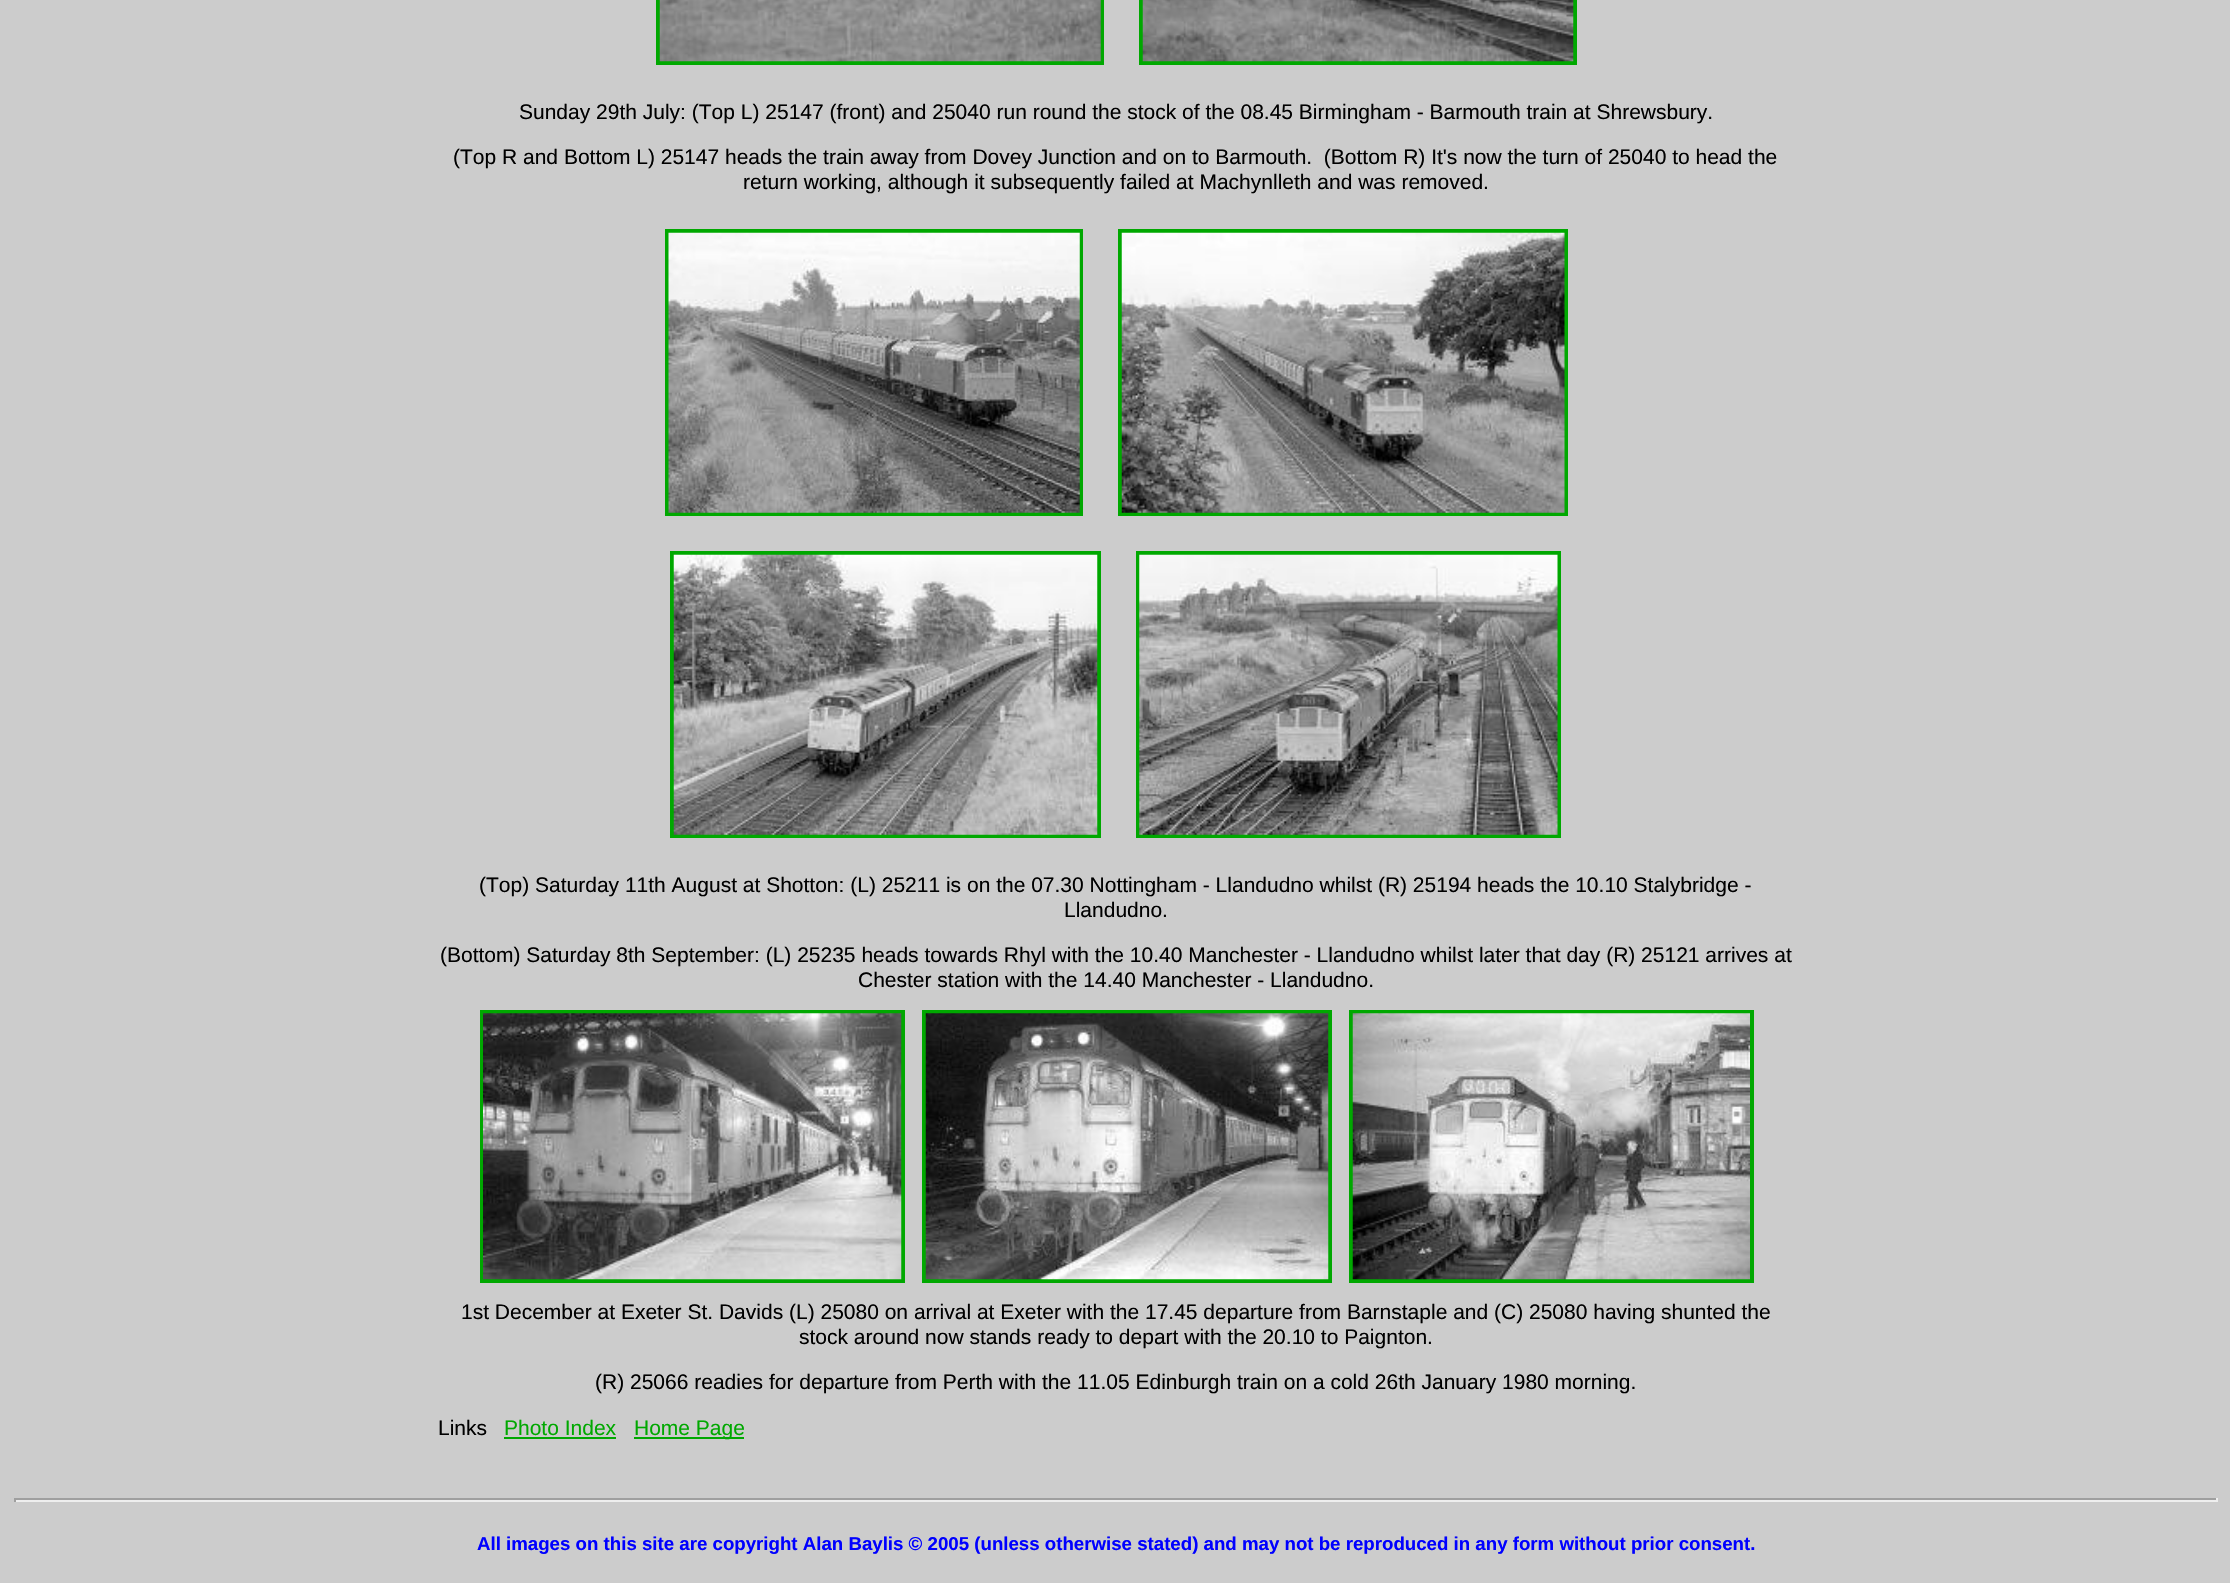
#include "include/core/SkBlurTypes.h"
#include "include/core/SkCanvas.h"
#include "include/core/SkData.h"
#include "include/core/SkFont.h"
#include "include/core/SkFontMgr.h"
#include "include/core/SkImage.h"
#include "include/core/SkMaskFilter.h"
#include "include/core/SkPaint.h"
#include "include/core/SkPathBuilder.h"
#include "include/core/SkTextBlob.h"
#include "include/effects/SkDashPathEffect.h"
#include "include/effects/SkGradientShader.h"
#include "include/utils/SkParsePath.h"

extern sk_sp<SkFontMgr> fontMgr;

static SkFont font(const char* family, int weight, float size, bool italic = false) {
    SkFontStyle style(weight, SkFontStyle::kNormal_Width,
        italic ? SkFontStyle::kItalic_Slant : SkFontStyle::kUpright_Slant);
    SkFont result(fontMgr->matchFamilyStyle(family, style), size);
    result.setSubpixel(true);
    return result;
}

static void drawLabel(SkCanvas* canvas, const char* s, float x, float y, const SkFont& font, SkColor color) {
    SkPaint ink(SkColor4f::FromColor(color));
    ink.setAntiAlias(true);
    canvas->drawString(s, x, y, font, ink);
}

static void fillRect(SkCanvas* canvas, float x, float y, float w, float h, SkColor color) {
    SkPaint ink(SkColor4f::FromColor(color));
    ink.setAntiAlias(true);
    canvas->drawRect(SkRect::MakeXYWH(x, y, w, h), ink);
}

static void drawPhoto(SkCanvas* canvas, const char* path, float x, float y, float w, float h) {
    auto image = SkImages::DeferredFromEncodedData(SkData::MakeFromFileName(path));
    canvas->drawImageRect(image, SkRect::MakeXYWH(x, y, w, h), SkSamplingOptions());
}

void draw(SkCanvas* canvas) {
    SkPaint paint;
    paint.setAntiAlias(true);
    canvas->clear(0xFFCCCCCC);
    paint.setStroke(true);
    paint.setStrokeWidth(4);
    paint.setColor(0xFF00A800);
    canvas->drawRect(SkRect::MakeXYWH(658, -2, 444, 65), paint);
    canvas->drawRect(SkRect::MakeXYWH(1141, -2, 434, 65), paint);
    drawPhoto(canvas, "assets/img1.png", 659, 0, 442, 62);
    drawPhoto(canvas, "assets/img2.png", 1142, 0, 432, 62);
    SkFont font1 = font("Liberation Sans", 400, 21);
    drawLabel(canvas, "Sunday 29th July: (Top L) 25147 (front) and 25040 run round the stock of the 08.45 Birmingham - Barmouth train at Shrewsbury.", 519, 119, font1, 0xFF000000);
    drawLabel(canvas, "(Top R and Bottom L) 25147 heads the train away from Dovey Junction and on to Barmouth.  (Bottom R) It's now the turn of 25040 to head the", 453, 164, font1, 0xFF000000);
    drawLabel(canvas, "return working, although it subsequently failed at Machynlleth and was removed.", 743, 189, font1, 0xFF000000);
    canvas->drawRect(SkRect::MakeXYWH(667, 231, 414, 283), paint);
    canvas->drawRect(SkRect::MakeXYWH(1120, 231, 446, 283), paint);
    drawPhoto(canvas, "assets/img3.png", 668, 232, 412, 281);
    drawPhoto(canvas, "assets/img4.png", 1121, 232, 444, 281);
    canvas->drawRect(SkRect::MakeXYWH(672, 553, 427, 283), paint);
    canvas->drawRect(SkRect::MakeXYWH(1138, 553, 421, 283), paint);
    drawPhoto(canvas, "assets/img5.png", 673, 554, 425, 281);
    drawPhoto(canvas, "assets/img6.png", 1139, 554, 419, 281);
    drawLabel(canvas, "(Top) Saturday 11th August at Shotton: (L) 25211 is on the 07.30 Nottingham - Llandudno whilst (R) 25194 heads the 10.10 Stalybridge -", 479, 892, font1, 0xFF000000);
    drawLabel(canvas, "Llandudno.", 1064, 917, font1, 0xFF000000);
    drawLabel(canvas, "(Bottom) Saturday 8th September: (L) 25235 heads towards Rhyl with the 10.40 Manchester - Llandudno whilst later that day (R) 25121 arrives at", 440, 962, font1, 0xFF000000);
    drawLabel(canvas, "Chester station with the 14.40 Manchester - Llandudno.", 858, 987, font1, 0xFF000000);
    canvas->drawRect(SkRect::MakeXYWH(482, 1012, 421, 269), paint);
    canvas->drawRect(SkRect::MakeXYWH(924, 1012, 406, 269), paint);
    canvas->drawRect(SkRect::MakeXYWH(1351, 1012, 401, 269), paint);
    drawPhoto(canvas, "assets/img7.png", 483, 1013, 419, 267);
    drawPhoto(canvas, "assets/img8.png", 925, 1013, 404, 267);
    drawPhoto(canvas, "assets/img9.png", 1352, 1013, 398, 267);
    drawLabel(canvas, "1st December at Exeter St. Davids (L) 25080 on arrival at Exeter with the 17.45 departure from Barnstaple and (C) 25080 having shunted the", 461, 1319, font1, 0xFF000000);
    drawLabel(canvas, "stock around now stands ready to depart with the 20.10 to Paignton.", 799, 1344, font1, 0xFF000000);
    drawLabel(canvas, "(R) 25066 readies for departure from Perth with the 11.05 Edinburgh train on a cold 26th January 1980 morning.", 595, 1389, font1, 0xFF000000);
    drawLabel(canvas, "Links", 438, 1435, font1, 0xFF000000);
    drawLabel(canvas, "Photo Index", 504, 1435, font1, 0xFF00A800);
    fillRect(canvas, 504, 1437, 112, 2, 0xFF00A800);
    fillRect(canvas, 634, 1437, 110, 2, 0xFF00A800);
    drawLabel(canvas, "Home Page", 634, 1435, font1, 0xFF00A800);
    fillRect(canvas, 14, 1498, 2203, 2, 0xFF9F9F9F);
    fillRect(canvas, 2216, 1498, 2, 4, 0xFFEEEEEE);
    fillRect(canvas, 14, 1500, 2203, 2, 0xFFEEEEEE);
    fillRect(canvas, 14, 1498, 2, 4, 0xFF9F9F9F);
    SkFont font2 = font("Liberation Sans", 700, 18.67f);
    drawLabel(canvas, "All images on this site are copyright Alan Baylis © 2005 (unless otherwise stated) and may not be reproduced in any form without prior consent.", 477, 1550, font2, 0xFF0000FF);
}
